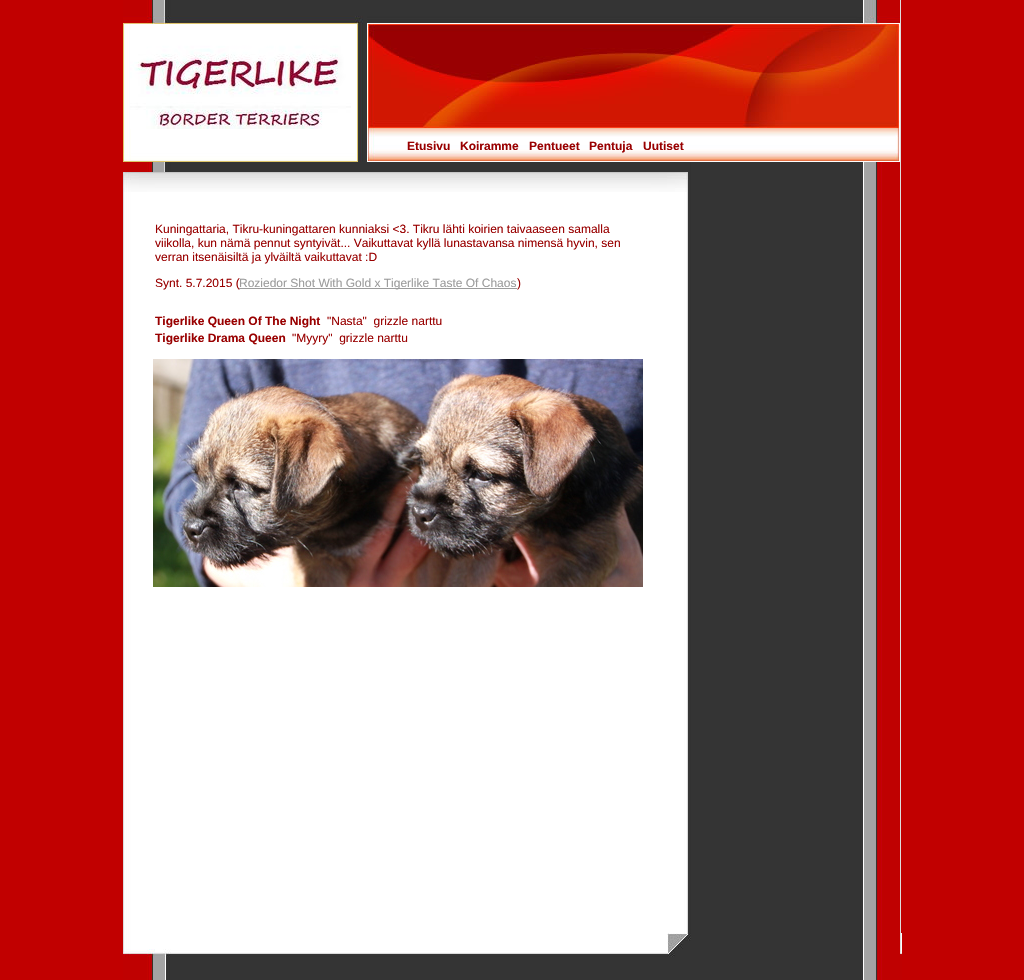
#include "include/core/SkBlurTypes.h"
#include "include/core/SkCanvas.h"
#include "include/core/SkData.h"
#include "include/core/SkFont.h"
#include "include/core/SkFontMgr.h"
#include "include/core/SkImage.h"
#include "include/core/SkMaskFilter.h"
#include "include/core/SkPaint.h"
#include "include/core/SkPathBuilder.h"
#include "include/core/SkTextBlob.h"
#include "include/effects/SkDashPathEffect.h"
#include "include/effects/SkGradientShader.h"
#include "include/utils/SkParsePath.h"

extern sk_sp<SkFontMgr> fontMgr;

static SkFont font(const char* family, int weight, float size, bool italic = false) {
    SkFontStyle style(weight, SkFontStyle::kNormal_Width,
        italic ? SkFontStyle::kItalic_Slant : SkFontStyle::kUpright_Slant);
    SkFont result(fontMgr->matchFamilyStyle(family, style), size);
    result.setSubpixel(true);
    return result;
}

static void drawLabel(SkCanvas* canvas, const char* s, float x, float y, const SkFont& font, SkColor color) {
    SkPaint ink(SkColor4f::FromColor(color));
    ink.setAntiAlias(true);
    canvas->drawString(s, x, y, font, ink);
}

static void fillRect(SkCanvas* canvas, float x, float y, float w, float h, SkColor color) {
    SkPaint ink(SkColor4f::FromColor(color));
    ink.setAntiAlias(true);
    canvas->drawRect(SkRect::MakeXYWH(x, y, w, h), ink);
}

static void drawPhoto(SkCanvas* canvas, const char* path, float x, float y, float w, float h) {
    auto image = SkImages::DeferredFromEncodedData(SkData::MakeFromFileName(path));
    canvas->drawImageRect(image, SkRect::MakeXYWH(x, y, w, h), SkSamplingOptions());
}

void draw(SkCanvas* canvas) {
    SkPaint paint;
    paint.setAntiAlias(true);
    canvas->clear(0xFFC10000);
    drawPhoto(canvas, "assets/img1.png", 123, 0, 778, 933);
    drawPhoto(canvas, "assets/img2.png", 123, 0, 244, 129);
    drawPhoto(canvas, "assets/img3.png", 130, 30, 221, 99);
    drawPhoto(canvas, "assets/img4.png", 367, 0, 533, 129);
    drawPhoto(canvas, "assets/img5.png", 123, 129, 244, 33);
    drawPhoto(canvas, "assets/img6.png", 367, 129, 533, 33);
    SkFont font1 = font("Liberation Sans", 700, 12);
    drawLabel(canvas, "Etusivu", 407, 150, font1, 0xFF990000);
    drawLabel(canvas, "Koiramme", 460, 150, font1, 0xFF990000);
    drawLabel(canvas, "Pentueet", 529, 150, font1, 0xFF990000);
    drawLabel(canvas, "Pentuja", 589, 150, font1, 0xFF990000);
    drawLabel(canvas, "Uutiset", 643, 150, font1, 0xFF990000);
    drawPhoto(canvas, "assets/img7.png", 123, 162, 565, 10);
    drawPhoto(canvas, "assets/img8.png", 123, 172, 565, 20);
    SkFont font2 = font("Liberation Sans", 400, 12);
    drawLabel(canvas, "Kuningattaria, Tikru-kuningattaren kunniaksi <3. Tikru lähti koirien taivaaseen samalla", 155, 233, font2, 0xFF990000);
    drawLabel(canvas, "viikolla, kun nämä pennut syntyivät... Vaikuttavat kyllä lunastavansa nimensä hyvin, sen", 155, 247, font2, 0xFF990000);
    drawLabel(canvas, "verran itsenäisiltä ja ylväiltä vaikuttavat :D", 155, 261, font2, 0xFF990000);
    drawLabel(canvas, "Synt. 5.7.2015 (", 155, 287, font2, 0xFF990000);
    fillRect(canvas, 239, 288, 278, 1, 0xFF9C9C9C);
    drawLabel(canvas, "Roziedor Shot With Gold x Tigerlike Taste Of Chaos", 239, 287, font2, 0xFF9C9C9C);
    drawLabel(canvas, ")", 517, 287, font2, 0xFF990000);
    drawLabel(canvas, "Tigerlike Queen Of The Night", 155, 325, font1, 0xFF990000);
    drawLabel(canvas, "\"Nasta\"  grizzle narttu", 327, 325, font2, 0xFF990000);
    drawLabel(canvas, "Tigerlike Drama Queen", 155, 342, font1, 0xFF990000);
    drawLabel(canvas, "\"Myyry\"  grizzle narttu", 292, 342, font2, 0xFF990000);
    drawPhoto(canvas, "assets/img9.png", 153, 359, 490, 228);
    drawPhoto(canvas, "assets/img10.png", 123, 933, 779, 47);
}
